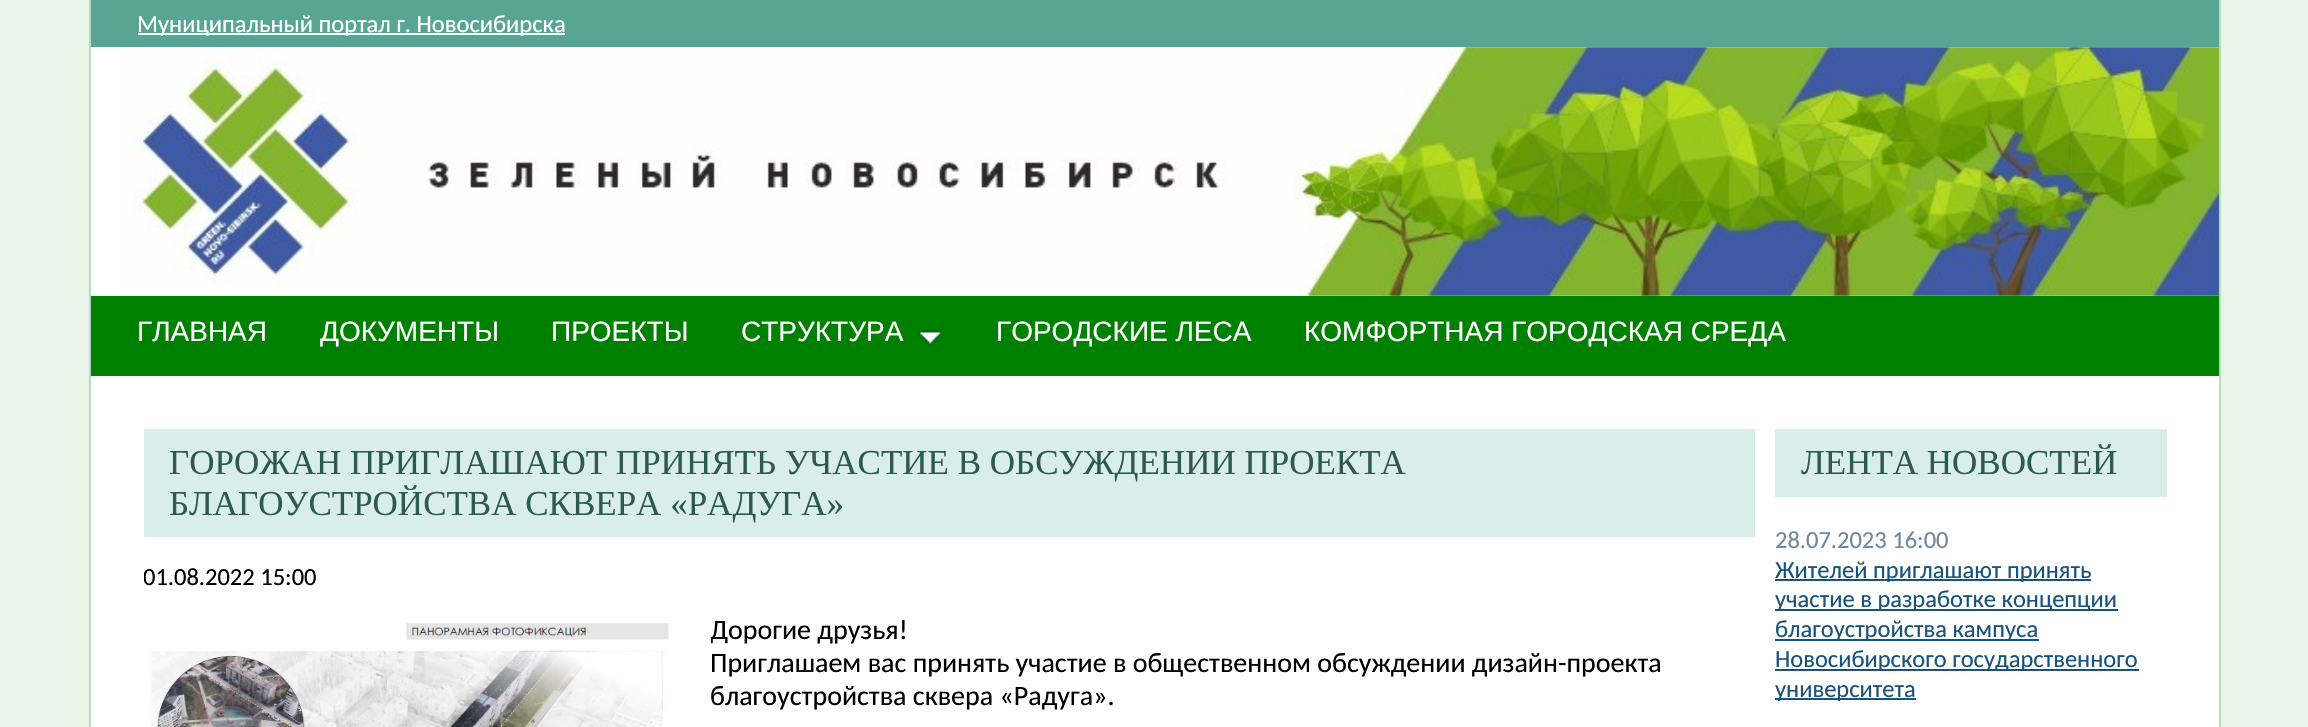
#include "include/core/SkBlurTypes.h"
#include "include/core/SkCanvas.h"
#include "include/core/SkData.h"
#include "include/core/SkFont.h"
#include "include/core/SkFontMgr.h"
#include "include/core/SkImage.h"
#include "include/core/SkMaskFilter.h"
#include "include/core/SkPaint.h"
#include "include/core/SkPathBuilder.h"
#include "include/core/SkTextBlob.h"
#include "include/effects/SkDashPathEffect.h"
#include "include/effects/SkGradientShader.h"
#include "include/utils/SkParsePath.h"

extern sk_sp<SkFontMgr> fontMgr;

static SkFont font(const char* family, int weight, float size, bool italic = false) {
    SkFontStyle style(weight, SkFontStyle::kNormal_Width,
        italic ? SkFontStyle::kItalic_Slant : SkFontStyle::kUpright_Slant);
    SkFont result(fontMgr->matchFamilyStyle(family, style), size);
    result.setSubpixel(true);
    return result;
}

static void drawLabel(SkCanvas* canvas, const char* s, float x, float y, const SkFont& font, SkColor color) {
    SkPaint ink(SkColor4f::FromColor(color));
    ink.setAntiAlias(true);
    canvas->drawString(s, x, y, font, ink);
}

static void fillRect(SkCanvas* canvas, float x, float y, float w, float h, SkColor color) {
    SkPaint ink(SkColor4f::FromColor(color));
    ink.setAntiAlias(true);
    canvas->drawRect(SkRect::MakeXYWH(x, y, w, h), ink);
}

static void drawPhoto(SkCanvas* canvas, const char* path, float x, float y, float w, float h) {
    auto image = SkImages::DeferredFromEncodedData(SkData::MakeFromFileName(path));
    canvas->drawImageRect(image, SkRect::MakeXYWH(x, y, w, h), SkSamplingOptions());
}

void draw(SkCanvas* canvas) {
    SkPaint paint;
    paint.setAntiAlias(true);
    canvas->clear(0xFFE9F5E9);
    fillRect(canvas, 91, 47, 2128, 680, 0xFFFFFFFF);
    fillRect(canvas, 2219, 0, 2, 727, 0xFFB4DEBA);
    fillRect(canvas, 89, 0, 2, 727, 0xFFB4DEBA);
    drawPhoto(canvas, "assets/img1.png", 119, 47, 2100, 249);
    fillRect(canvas, 91, 0, 2128, 47, 0xFF58A593);
    fillRect(canvas, 138, 33, 427, 2, 0xFFFFFFFF);
    SkFont font1 = font("Carlito", 400, 24.5f);
    drawLabel(canvas, "Муниципальный портал г. Новосибирска", 137, 32, font1, 0xFFFFFFFF);
    fillRect(canvas, 91, 296, 2128, 80, 0xFF008000);
    SkFont font2 = font("Liberation Sans", 400, 28);
    drawLabel(canvas, "ГЛАВНАЯ", 137, 341, font2, 0xFFFFFFFF);
    drawLabel(canvas, "ДОКУМЕНТЫ", 320, 341, font2, 0xFFFFFFFF);
    drawLabel(canvas, "ПРОЕКТЫ", 551, 341, font2, 0xFFFFFFFF);
    drawPhoto(canvas, "assets/img2.png", 918, 329, 25, 17);
    drawLabel(canvas, "СТРУКТУРА", 741, 341, font2, 0xFFFFFFFF);
    drawLabel(canvas, "ГОРОДСКИЕ ЛЕСА", 996, 341, font2, 0xFFFFFFFF);
    drawLabel(canvas, "КОМФОРТНАЯ ГОРОДСКАЯ СРЕДА", 1304, 341, font2, 0xFFFFFFFF);
    fillRect(canvas, 144, 429, 1611, 108, 0xFFD9EEE9);
    SkFont font3 = font("Liberation Serif", 400, 35);
    drawLabel(canvas, "ГОРОЖАН ПРИГЛАШАЮТ ПРИНЯТЬ УЧАСТИЕ В ОБСУЖДЕНИИ ПРОЕКТА", 169, 474, font3, 0xFF2C5A50);
    drawLabel(canvas, "БЛАГОУСТРОЙСТВА СКВЕРА «РАДУГА»", 169, 515, font3, 0xFF2C5A50);
    canvas->save();
    canvas->clipRect(SkRect::MakeXYWH(144, 555, 1611, 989));
    drawLabel(canvas, "01.08.2022 15:00", 143, 585, font1, 0xFF000000);
    canvas->restore();
    drawPhoto(canvas, "assets/img3.png", 151, 622, 518, 105);
    canvas->save();
    canvas->clipRect(SkRect::MakeXYWH(711, 613, 1044, 33));
    SkFont font4 = font("Carlito", 400, 28);
    drawLabel(canvas, "Дорогие друзья!", 710, 639, font4, 0xFF000000);
    canvas->restore();
    drawLabel(canvas, "Приглашаем вас принять участие в общественном обсуждении дизайн-проекта", 710, 672, font4, 0xFF000000);
    drawLabel(canvas, "благоустройства сквера «Радуга».", 710, 705, font4, 0xFF000000);
    fillRect(canvas, 1775, 429, 392, 68, 0xFFD9EEE9);
    drawLabel(canvas, "ЛЕНТА НОВОСТЕЙ", 1801, 474, font3, 0xFF2C5A50);
    drawLabel(canvas, "28.07.2023 16:00", 1775, 548, font1, 0xFF6E899C);
    fillRect(canvas, 1775, 579, 316, 2, 0xFF18537D);
    drawLabel(canvas, "Жителей приглашают принять", 1775, 578, font1, 0xFF18537D);
    fillRect(canvas, 1775, 609, 343, 2, 0xFF18537D);
    drawLabel(canvas, "участие в разработке концепции", 1775, 607, font1, 0xFF18537D);
    fillRect(canvas, 1775, 639, 264, 2, 0xFF18537D);
    drawLabel(canvas, "благоустройства кампуса", 1775, 637, font1, 0xFF18537D);
    fillRect(canvas, 1775, 669, 364, 2, 0xFF18537D);
    drawLabel(canvas, "Новосибирского государственного", 1775, 667, font1, 0xFF18537D);
    fillRect(canvas, 1775, 698, 141, 2, 0xFF18537D);
    drawLabel(canvas, "университета", 1775, 697, font1, 0xFF18537D);
}
